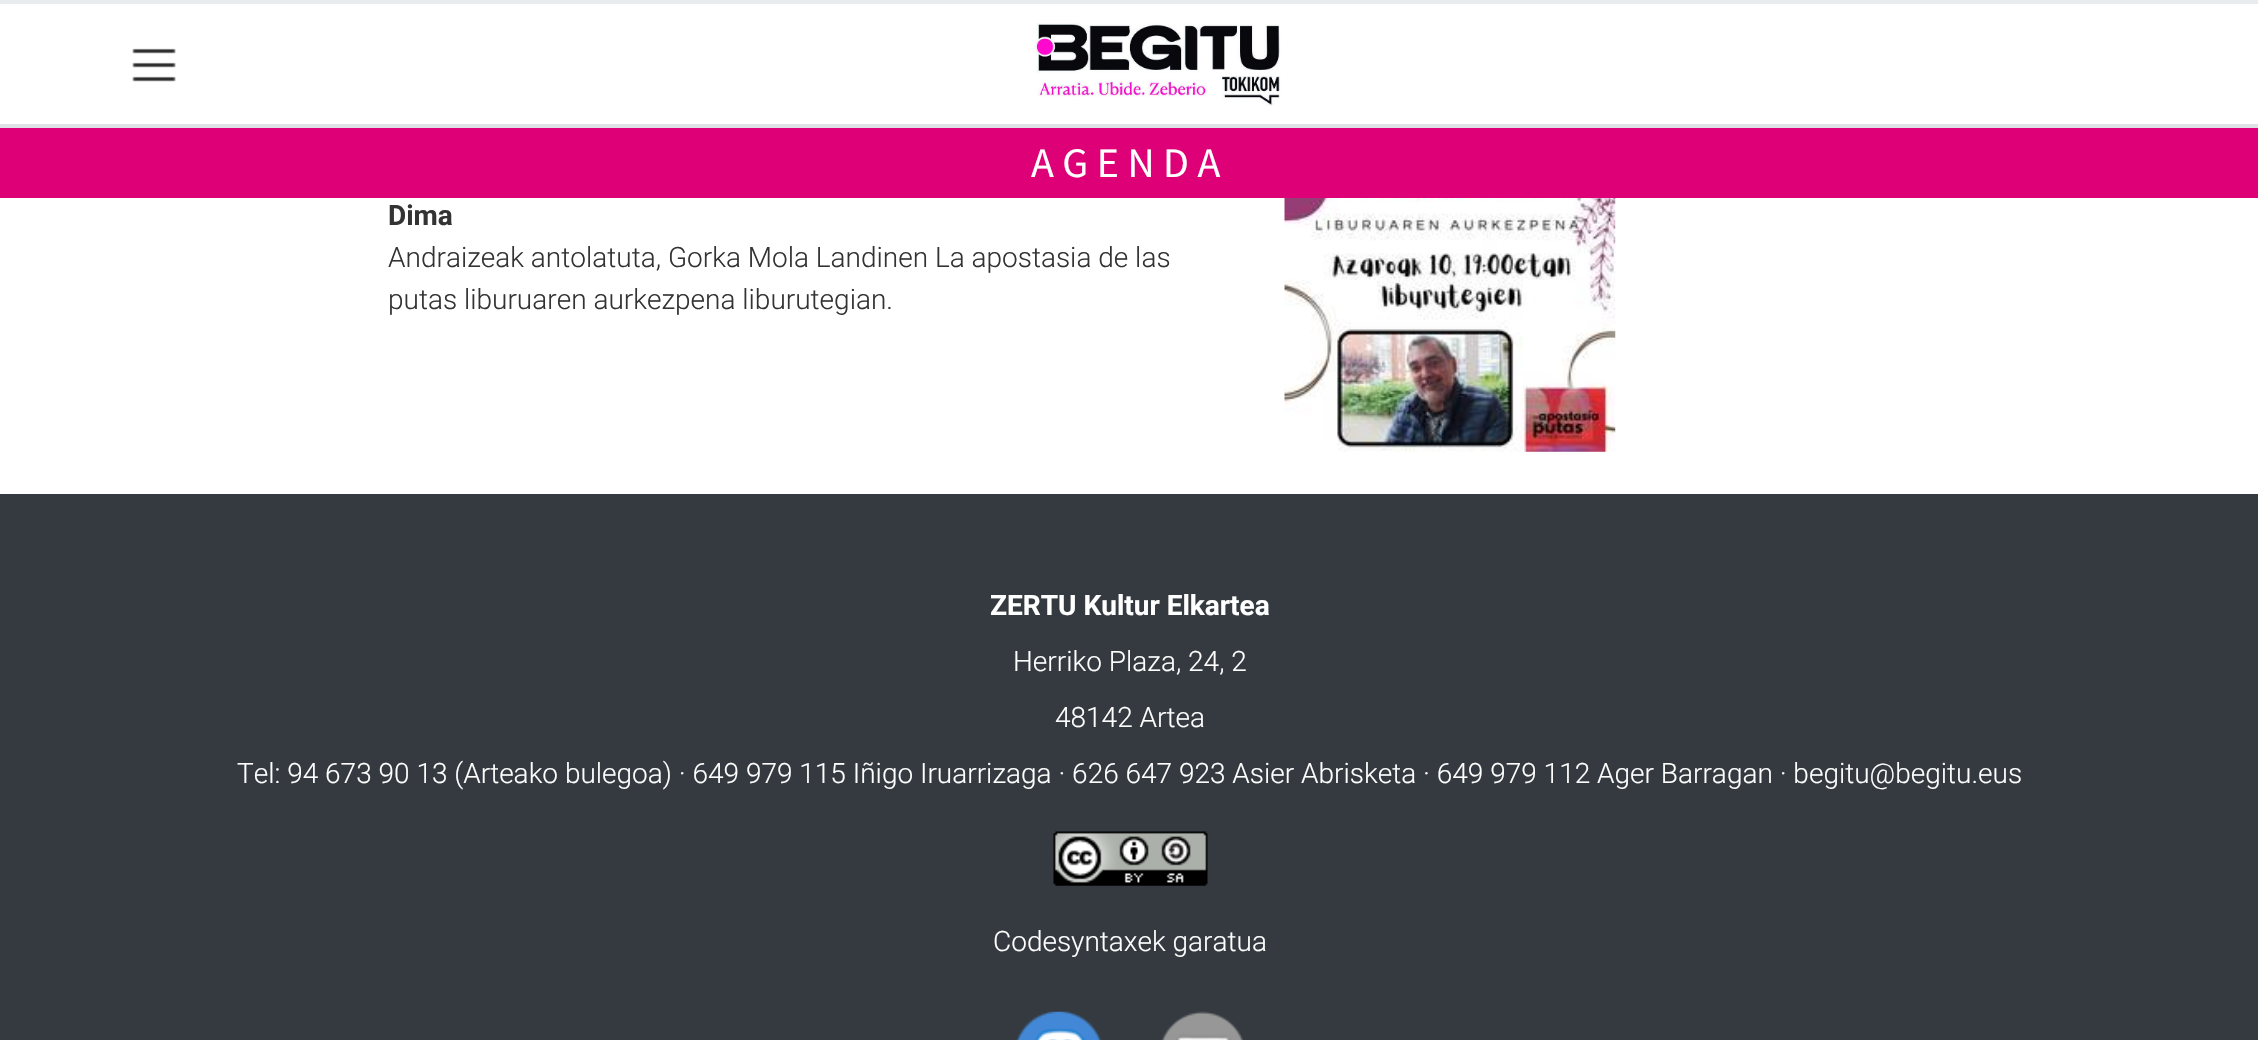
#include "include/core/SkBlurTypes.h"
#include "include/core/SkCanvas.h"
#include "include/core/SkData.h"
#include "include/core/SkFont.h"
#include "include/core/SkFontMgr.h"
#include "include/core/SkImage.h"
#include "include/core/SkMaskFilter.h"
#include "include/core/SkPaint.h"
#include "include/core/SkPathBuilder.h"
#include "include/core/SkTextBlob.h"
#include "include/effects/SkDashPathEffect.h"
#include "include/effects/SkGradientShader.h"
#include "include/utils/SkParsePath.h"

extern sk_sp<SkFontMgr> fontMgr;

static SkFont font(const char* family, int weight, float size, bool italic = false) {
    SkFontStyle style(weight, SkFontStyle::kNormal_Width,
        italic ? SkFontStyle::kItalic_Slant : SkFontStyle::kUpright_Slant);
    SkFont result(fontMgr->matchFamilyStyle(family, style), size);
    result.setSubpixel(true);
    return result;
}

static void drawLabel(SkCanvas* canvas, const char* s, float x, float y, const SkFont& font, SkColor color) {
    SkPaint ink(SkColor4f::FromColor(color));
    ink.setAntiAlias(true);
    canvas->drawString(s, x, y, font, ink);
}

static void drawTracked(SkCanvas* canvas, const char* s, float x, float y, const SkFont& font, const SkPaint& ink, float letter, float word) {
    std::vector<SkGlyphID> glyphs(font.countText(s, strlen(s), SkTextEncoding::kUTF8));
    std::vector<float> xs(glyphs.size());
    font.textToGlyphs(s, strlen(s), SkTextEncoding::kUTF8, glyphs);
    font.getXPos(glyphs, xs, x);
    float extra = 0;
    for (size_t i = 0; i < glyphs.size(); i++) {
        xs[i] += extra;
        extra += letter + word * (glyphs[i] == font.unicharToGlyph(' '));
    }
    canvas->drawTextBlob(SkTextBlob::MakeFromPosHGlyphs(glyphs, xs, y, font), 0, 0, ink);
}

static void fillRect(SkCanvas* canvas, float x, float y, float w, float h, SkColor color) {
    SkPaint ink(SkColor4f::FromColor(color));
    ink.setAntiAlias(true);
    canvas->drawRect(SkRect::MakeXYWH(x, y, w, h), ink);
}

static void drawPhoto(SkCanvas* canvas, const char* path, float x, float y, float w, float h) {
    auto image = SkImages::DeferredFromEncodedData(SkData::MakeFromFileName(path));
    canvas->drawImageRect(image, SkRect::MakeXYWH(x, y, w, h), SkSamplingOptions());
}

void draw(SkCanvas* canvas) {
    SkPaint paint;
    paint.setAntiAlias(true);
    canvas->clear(0xFFFFFFFF);
    fillRect(canvas, 0, 0, 2258, 4, 0xFFE9ECEF);
    drawPhoto(canvas, "assets/img1.png", 132, 48, 44, 34);
    drawPhoto(canvas, "assets/img2.png", 1034, 23, 247, 83);
    fillRect(canvas, 0, 124, 2258, 4, 0xFFDEE2E6);
    fillRect(canvas, 0, 128, 2258, 70, 0xFFDE0077);
    SkFont font1 = font("Source Sans Pro", 400, 42);
    paint.setColor(0xFFFFFFFF);
    drawTracked(canvas, "AGENDA", 1031, 177, font1, paint, 8.5f, 0);
    SkFont font2 = font("Roboto", 700, 28);
    drawLabel(canvas, "Dima", 388, 225, font2, 0xFF333333);
    SkFont font3 = font("Roboto", 300, 28);
    drawLabel(canvas, "Andraizeak antolatuta, Gorka Mola Landinen La apostasia de las", 388, 267, font3, 0xFF333333);
    drawLabel(canvas, "putas liburuaren aurkezpena liburutegian.", 388, 309, font3, 0xFF333333);
    drawPhoto(canvas, "assets/img3.png", 1284, 198, 332, 254);
    fillRect(canvas, 0, 494, 2258, 546, 0xFF343A40);
    drawLabel(canvas, "ZERTU Kultur Elkartea", 990, 615, font2, 0xFFFFFFFF);
    drawLabel(canvas, "Herriko Plaza, 24, 2", 1013, 671, font3, 0xFFFFFFFF);
    drawLabel(canvas, "48142 Artea", 1055, 727, font3, 0xFFFFFFFF);
    drawLabel(canvas, "Tel: 94 673 90 13 (Arteako bulegoa) · 649 979 115 Iñigo Iruarrizaga · 626 647 923 Asier Abrisketa · 649 979 112 Ager Barragan · begitu@begitu.eus", 237, 783, font3, 0xFFFFFFFF);
    drawPhoto(canvas, "assets/img4.png", 1053, 831, 155, 55);
    drawLabel(canvas, "Codesyntaxek garatua", 993, 951, font3, 0xFFFFFFFF);
    drawPhoto(canvas, "assets/img5.png", 1016, 1011, 86, 29);
    drawPhoto(canvas, "assets/img6.png", 1161, 1011, 82, 29);
}
